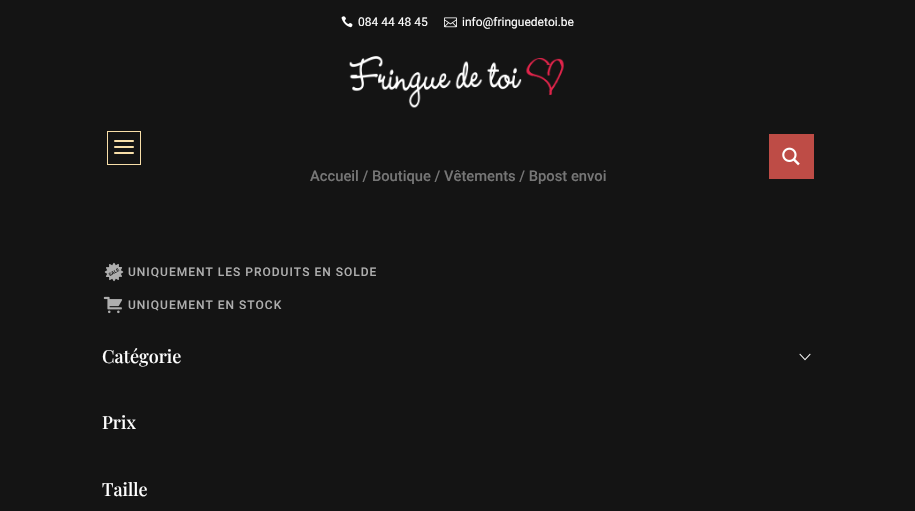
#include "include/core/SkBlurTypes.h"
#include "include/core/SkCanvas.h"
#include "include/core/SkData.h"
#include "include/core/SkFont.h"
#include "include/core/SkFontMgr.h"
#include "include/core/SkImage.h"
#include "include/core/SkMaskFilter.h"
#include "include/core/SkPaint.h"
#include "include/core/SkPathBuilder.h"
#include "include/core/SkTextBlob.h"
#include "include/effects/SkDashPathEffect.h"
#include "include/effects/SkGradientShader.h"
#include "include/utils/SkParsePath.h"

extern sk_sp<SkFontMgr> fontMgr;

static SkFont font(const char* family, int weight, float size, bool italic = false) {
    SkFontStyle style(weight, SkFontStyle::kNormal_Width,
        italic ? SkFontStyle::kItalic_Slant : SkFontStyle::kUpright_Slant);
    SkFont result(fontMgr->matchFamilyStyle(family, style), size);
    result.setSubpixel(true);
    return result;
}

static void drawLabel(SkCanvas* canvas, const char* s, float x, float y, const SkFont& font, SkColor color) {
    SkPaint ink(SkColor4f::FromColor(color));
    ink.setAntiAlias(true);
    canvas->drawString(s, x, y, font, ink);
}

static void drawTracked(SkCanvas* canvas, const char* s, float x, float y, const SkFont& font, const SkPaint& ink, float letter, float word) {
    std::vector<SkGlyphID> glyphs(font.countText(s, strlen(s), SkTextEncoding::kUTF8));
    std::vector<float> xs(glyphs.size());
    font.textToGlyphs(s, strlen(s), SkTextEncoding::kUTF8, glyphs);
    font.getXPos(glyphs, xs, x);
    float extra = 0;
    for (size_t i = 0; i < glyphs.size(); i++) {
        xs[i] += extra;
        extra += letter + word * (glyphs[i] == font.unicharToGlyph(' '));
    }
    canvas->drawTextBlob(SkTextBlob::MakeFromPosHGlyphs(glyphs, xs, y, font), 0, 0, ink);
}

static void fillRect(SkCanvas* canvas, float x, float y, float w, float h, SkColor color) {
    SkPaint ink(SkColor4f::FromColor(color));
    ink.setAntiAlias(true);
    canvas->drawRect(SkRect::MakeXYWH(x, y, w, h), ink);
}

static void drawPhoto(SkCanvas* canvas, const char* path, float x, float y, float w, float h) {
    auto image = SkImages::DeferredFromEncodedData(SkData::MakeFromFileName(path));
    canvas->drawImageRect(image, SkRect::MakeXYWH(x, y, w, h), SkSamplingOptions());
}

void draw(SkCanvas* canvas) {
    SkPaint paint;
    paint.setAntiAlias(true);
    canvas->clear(0xFF141414);
    drawPhoto(canvas, "assets/img1.png", 341, 16, 12, 12);
    SkFont font1 = font("Roboto", 400, 12);
    drawLabel(canvas, "084 44 48 45", 358, 26, font1, 0xFFFFFFFF);
    drawPhoto(canvas, "assets/img2.png", 444, 17, 13, 11);
    drawLabel(canvas, "info@fringuedetoi.be", 462, 26, font1, 0xFFFFFFFF);
    drawPhoto(canvas, "assets/img3.png", 349, 56, 215, 52);
    paint.setStroke(true);
    paint.setStrokeWidth(1);
    paint.setColor(0xFFF8DFA9);
    canvas->drawRect(SkRect::MakeXYWH(107.5f, 131.5f, 33, 33), paint);
    drawPhoto(canvas, "assets/img4.png", 114, 140, 20, 14);
    fillRect(canvas, 769, 134, 45, 45, 0xFFBE4C46);
    drawPhoto(canvas, "assets/img5.png", 782, 147, 18, 19);
    SkFont font2 = font("Roboto", 500, 14.75f);
    drawLabel(canvas, "Accueil / Boutique / Vêtements / Bpost envoi", 310, 181, font2, 0xFF767676);
    drawPhoto(canvas, "assets/img6.png", 104, 262, 20, 20);
    SkFont font3 = font("Roboto", 500, 12);
    paint.setStroke(false);
    paint.setColor(0xFFAEAEAE);
    drawTracked(canvas, "UNIQUEMENT LES PRODUITS EN SOLDE", 128, 276, font3, paint, 1, 0);
    drawPhoto(canvas, "assets/img7.png", 103, 296, 20, 18);
    drawTracked(canvas, "UNIQUEMENT EN STOCK", 128, 309, font3, paint, 1, 0);
    SkFont font4 = font("Playfair Display", 500, 18);
    drawLabel(canvas, "Catégorie", 102, 363, font4, 0xFFFFFFFF);
    drawPhoto(canvas, "assets/img8.png", 799, 353, 12, 8);
    drawLabel(canvas, "Prix", 102, 429, font4, 0xFFFFFFFF);
    drawLabel(canvas, "Taille", 102, 496, font4, 0xFFFFFFFF);
}
